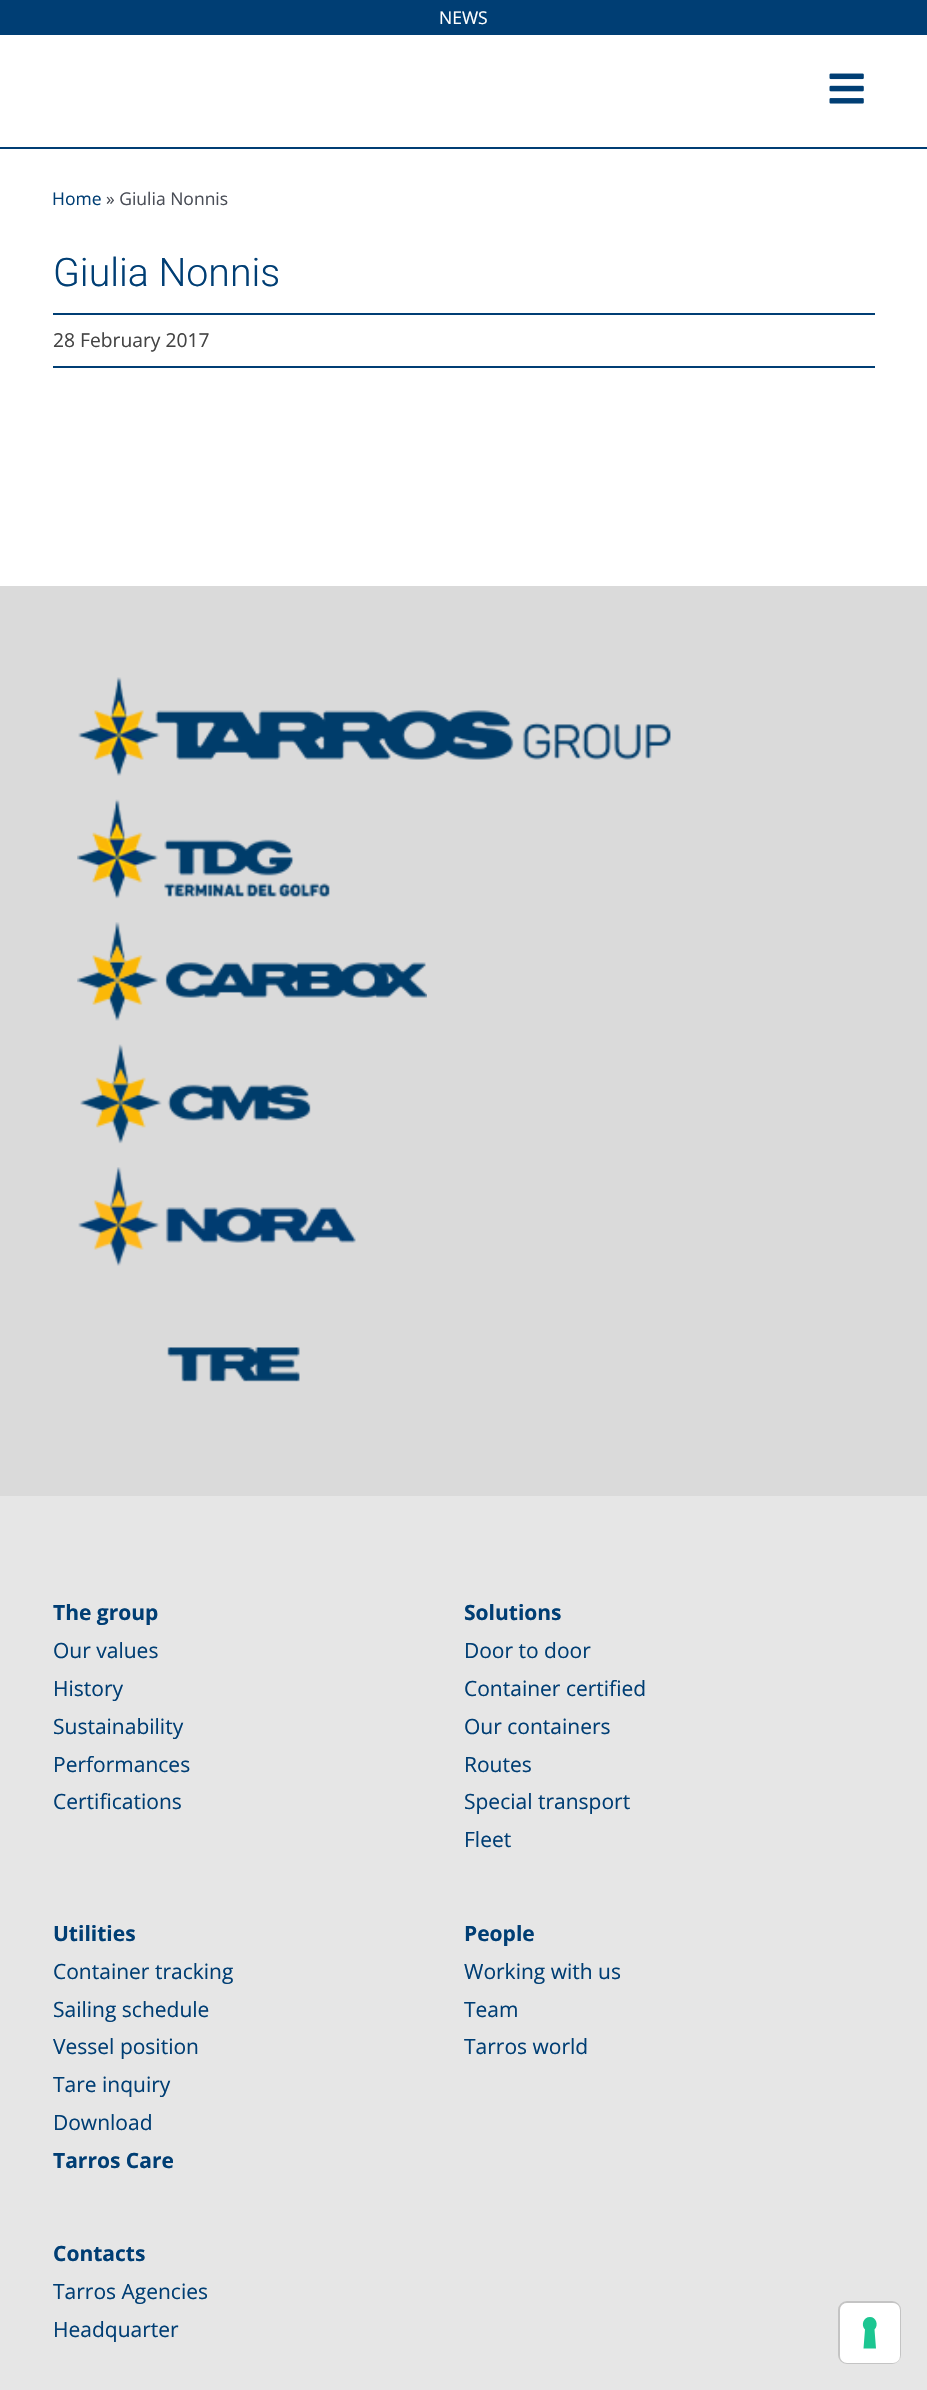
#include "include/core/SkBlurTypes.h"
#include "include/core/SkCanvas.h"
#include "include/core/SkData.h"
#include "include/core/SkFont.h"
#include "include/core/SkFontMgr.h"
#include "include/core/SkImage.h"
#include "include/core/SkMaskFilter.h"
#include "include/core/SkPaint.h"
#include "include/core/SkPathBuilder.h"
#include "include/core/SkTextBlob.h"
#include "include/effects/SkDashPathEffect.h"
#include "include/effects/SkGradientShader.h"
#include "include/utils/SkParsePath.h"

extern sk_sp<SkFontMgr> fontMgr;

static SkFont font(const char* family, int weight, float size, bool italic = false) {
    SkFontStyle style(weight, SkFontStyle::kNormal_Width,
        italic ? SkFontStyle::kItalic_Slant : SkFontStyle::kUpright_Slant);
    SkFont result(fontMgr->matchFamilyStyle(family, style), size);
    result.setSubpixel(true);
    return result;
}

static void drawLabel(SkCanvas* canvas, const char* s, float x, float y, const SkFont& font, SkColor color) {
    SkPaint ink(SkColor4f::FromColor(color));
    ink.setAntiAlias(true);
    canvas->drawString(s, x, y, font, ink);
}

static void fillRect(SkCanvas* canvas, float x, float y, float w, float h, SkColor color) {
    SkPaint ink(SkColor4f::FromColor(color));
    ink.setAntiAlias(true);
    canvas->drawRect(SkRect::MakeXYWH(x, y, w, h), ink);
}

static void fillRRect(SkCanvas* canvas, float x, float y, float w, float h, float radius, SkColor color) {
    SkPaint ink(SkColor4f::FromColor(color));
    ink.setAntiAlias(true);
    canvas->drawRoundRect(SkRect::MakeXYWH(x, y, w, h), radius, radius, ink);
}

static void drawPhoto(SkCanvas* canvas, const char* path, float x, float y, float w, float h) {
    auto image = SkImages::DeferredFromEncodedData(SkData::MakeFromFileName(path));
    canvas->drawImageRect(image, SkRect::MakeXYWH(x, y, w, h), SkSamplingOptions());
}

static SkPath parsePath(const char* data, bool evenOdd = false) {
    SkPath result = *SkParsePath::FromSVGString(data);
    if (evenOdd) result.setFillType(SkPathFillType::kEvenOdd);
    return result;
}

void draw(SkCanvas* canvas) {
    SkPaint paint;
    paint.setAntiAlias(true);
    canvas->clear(0xFFFFFFFF);
    fillRect(canvas, 0, 0, 927, 35, 0xFF003E74);
    SkFont font1 = font("Open Sans", 400, 17.5f);
    drawLabel(canvas, "NEWS", 439, 24, font1, 0xFFFFFFFF);
    fillRect(canvas, 0, 147, 927, 2, 0xFF003E74);
    drawPhoto(canvas, "assets/img1.png", 829, 73, 35, 31);
    drawLabel(canvas, "Home", 52, 205, font1, 0xFF003E74);
    drawLabel(canvas, "» Giulia Nonnis", 106, 205, font1, 0xFF4A4E57);
    SkFont font2 = font("Roboto", 300, 39.25f);
    drawLabel(canvas, "Giulia Nonnis", 53, 286, font2, 0xFF003E74);
    fillRect(canvas, 53, 313, 822, 2, 0xFF003E74);
    fillRect(canvas, 53, 366, 822, 2, 0xFF003E74);
    SkFont font3 = font("Open Sans", 400, 19.25f);
    drawLabel(canvas, "28 February 2017", 53, 347, font3, 0xFF444444);
    fillRect(canvas, 0, 586, 927, 910, 0xFFDADADA);
    drawPhoto(canvas, "assets/img2.png", 78, 677, 593, 99);
    drawPhoto(canvas, "assets/img3.png", 77, 799, 253, 100);
    drawPhoto(canvas, "assets/img4.png", 77, 922, 350, 99);
    drawPhoto(canvas, "assets/img5.png", 80, 1044, 231, 100);
    drawPhoto(canvas, "assets/img6.png", 78, 1167, 278, 99);
    drawPhoto(canvas, "assets/img7.png", 167, 1347, 133, 35);
    fillRect(canvas, 0, 1496, 927, 894, 0xFFE6E6E6);
    SkFont font4 = font("Open Sans", 700, 21);
    drawLabel(canvas, "The group", 53, 1620, font4, 0xFF003E74);
    SkFont font5 = font("Open Sans", 400, 21);
    drawLabel(canvas, "Our values", 53, 1658, font5, 0xFF003E74);
    drawLabel(canvas, "History", 53, 1696, font5, 0xFF003E74);
    drawLabel(canvas, "Sustainability", 53, 1734, font5, 0xFF003E74);
    drawLabel(canvas, "Performances", 53, 1772, font5, 0xFF003E74);
    drawLabel(canvas, "Certifications", 53, 1809, font5, 0xFF003E74);
    drawLabel(canvas, "Solutions", 464, 1620, font4, 0xFF003E74);
    drawLabel(canvas, "Door to door", 464, 1658, font5, 0xFF003E74);
    drawLabel(canvas, "Container certified", 464, 1696, font5, 0xFF003E74);
    drawLabel(canvas, "Our containers", 464, 1734, font5, 0xFF003E74);
    drawLabel(canvas, "Routes", 464, 1772, font5, 0xFF003E74);
    drawLabel(canvas, "Special transport", 464, 1809, font5, 0xFF003E74);
    drawLabel(canvas, "Fleet", 464, 1847, font5, 0xFF003E74);
    drawLabel(canvas, "Utilities", 53, 1941, font4, 0xFF003E74);
    drawLabel(canvas, "Container tracking", 53, 1979, font5, 0xFF003E74);
    drawLabel(canvas, "Sailing schedule", 53, 2017, font5, 0xFF003E74);
    drawLabel(canvas, "Vessel position", 53, 2054, font5, 0xFF003E74);
    drawLabel(canvas, "Tare inquiry", 53, 2092, font5, 0xFF003E74);
    drawLabel(canvas, "Download", 53, 2130, font5, 0xFF003E74);
    drawLabel(canvas, "Tarros Care", 53, 2168, font4, 0xFF003E74);
    drawLabel(canvas, "People", 464, 1941, font4, 0xFF003E74);
    drawLabel(canvas, "Working with us", 464, 1979, font5, 0xFF003E74);
    drawLabel(canvas, "Team", 464, 2017, font5, 0xFF003E74);
    drawLabel(canvas, "Tarros world", 464, 2054, font5, 0xFF003E74);
    drawLabel(canvas, "Contacts", 53, 2261, font4, 0xFF003E74);
    drawLabel(canvas, "Tarros Agencies", 53, 2299, font5, 0xFF003E74);
    drawLabel(canvas, "Headquarter", 53, 2337, font5, 0xFF003E74);
    paint.setStroke(true);
    paint.setStrokeWidth(2);
    paint.setColor(0xFFC4C4C4);
    canvas->drawRoundRect(SkRect::MakeXYWH(839, 2302, 61, 61), 8, 8, paint);
    fillRRect(canvas, 840, 2303, 60, 60, 7, 0xFFFFFFFF);
    paint.setStroke(false);
    paint.setColor(0xFF1CC691);
    canvas->drawPath(parsePath("M870 2317C876 2317 879 2325 874.5 2329.5L876 2348.5H863.5L865 2329.5C860.5 2325 863.5 2317 870 2317Z", true), paint);
}
